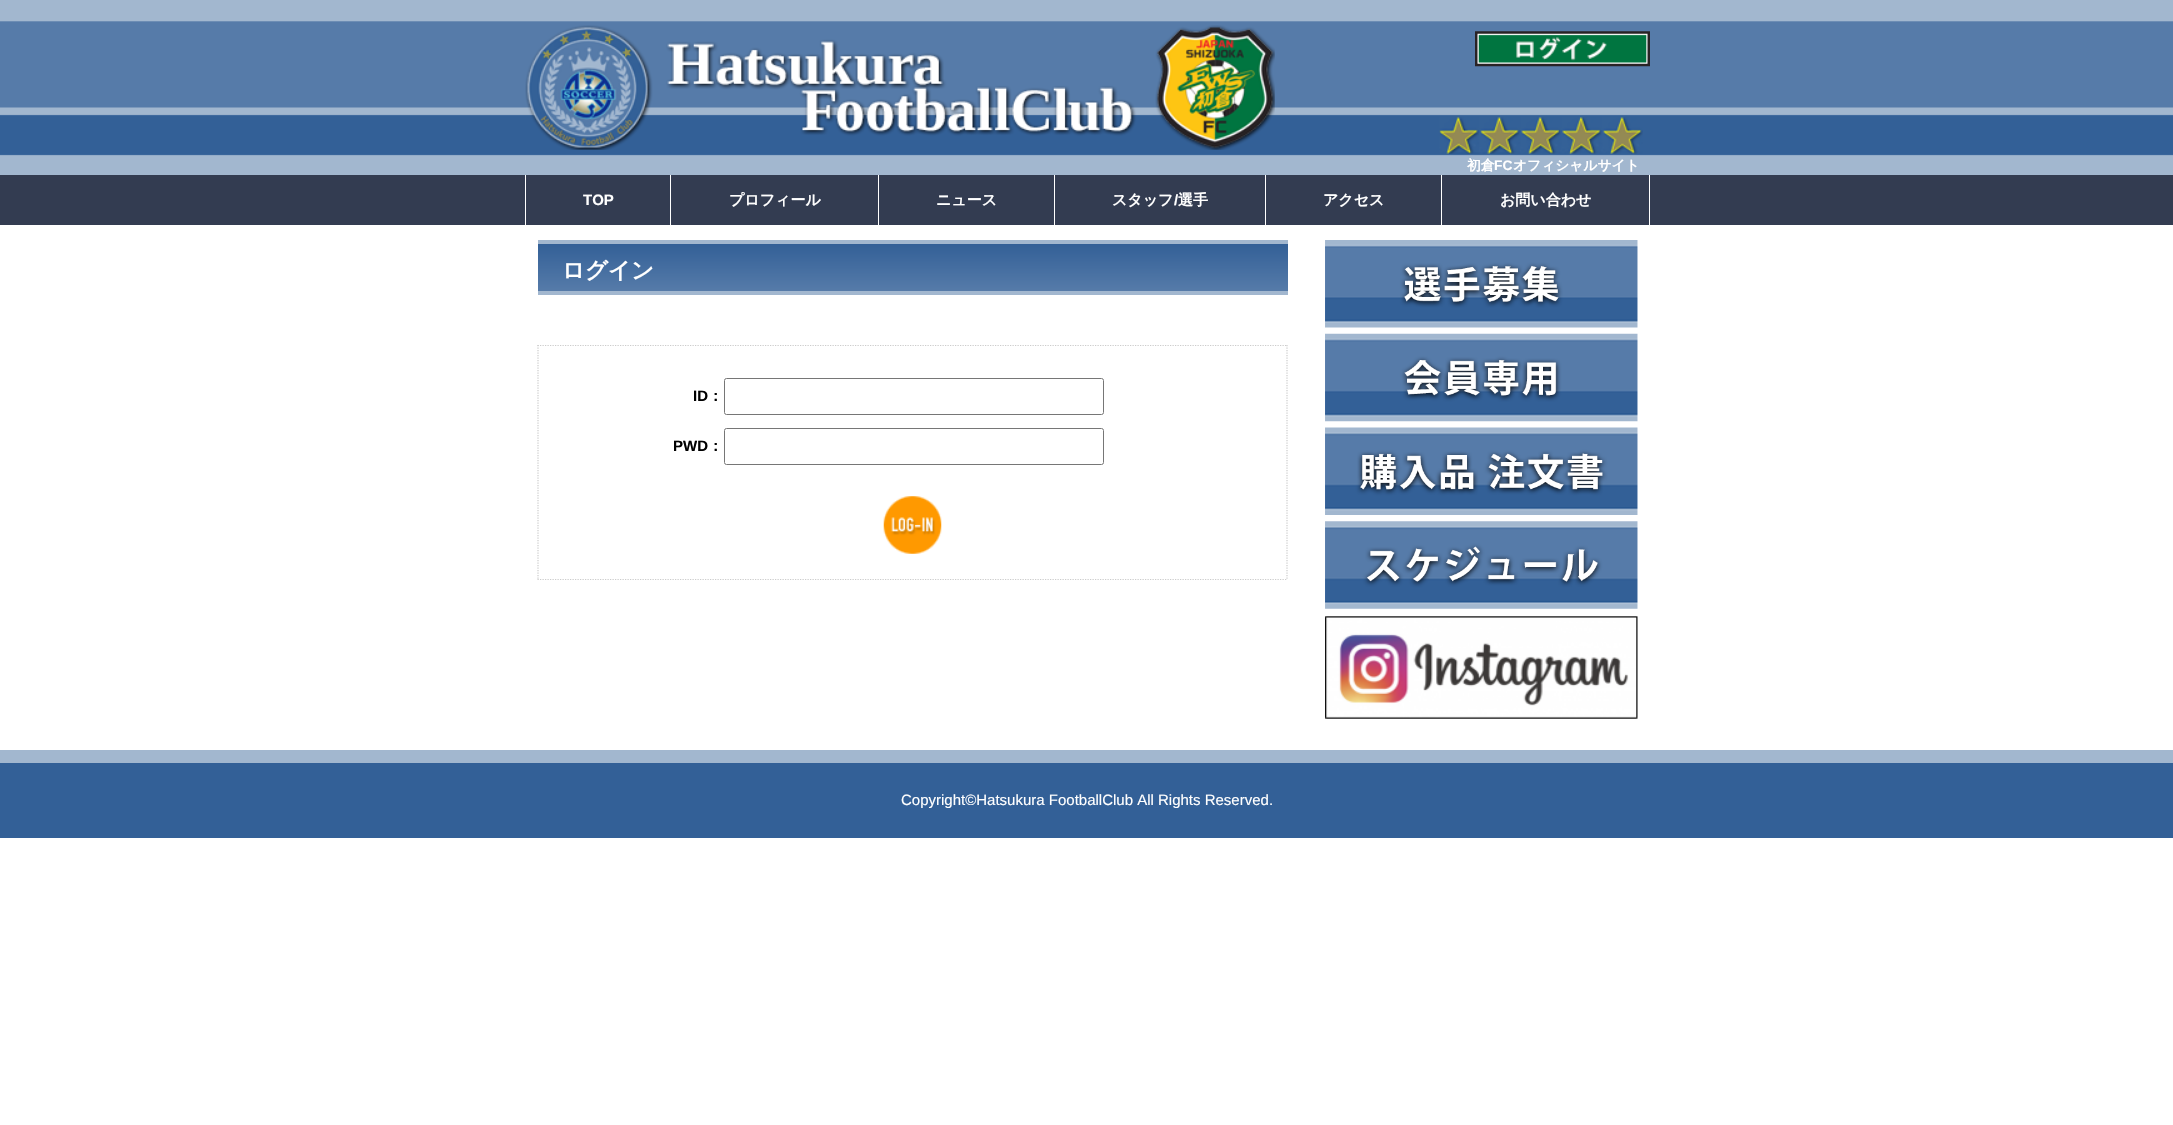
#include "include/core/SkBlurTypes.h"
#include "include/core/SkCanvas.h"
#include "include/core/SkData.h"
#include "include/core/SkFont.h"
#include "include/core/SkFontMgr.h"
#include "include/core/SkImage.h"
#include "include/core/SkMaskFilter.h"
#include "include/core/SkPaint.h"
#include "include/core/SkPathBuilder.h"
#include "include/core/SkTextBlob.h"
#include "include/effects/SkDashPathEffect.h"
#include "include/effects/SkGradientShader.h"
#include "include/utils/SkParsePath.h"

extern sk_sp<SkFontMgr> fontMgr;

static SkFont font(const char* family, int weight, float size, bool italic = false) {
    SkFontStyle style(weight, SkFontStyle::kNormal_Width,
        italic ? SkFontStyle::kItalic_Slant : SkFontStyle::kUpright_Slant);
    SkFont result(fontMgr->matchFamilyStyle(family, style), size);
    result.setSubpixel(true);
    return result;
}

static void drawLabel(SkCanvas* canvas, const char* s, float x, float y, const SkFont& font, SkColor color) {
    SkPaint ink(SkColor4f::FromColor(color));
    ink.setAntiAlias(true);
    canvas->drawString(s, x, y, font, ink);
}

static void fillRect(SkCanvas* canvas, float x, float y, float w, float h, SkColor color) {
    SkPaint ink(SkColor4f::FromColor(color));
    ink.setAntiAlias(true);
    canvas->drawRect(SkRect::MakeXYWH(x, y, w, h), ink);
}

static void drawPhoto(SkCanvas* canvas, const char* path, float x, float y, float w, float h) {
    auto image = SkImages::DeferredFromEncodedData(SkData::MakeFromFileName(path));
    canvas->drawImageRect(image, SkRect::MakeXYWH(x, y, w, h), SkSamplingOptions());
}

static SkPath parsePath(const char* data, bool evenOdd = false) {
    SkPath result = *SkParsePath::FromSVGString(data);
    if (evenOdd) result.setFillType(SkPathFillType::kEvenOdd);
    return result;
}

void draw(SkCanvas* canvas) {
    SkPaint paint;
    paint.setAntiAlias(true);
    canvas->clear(0xFFFFFFFF);
    drawPhoto(canvas, "assets/img1.png", 0, 0, 2173, 175);
    drawPhoto(canvas, "assets/img2.png", 1439, 117, 204, 37);
    drawPhoto(canvas, "assets/img3.png", 525, 25, 750, 125);
    drawPhoto(canvas, "assets/img4.png", 1475, 31, 175, 36);
    SkFont font1 = font("WenQuanYi Zen Hei", 700, 13.75f);
    drawLabel(canvas, "初倉", 1467, 170, font1, 0xFFFFFFFF);
    SkFont font2 = font("Liberation Sans", 700, 13.75f);
    drawLabel(canvas, "FC", 1494, 170, font2, 0xFFFFFFFF);
    drawLabel(canvas, "オフィシャルサイト", 1513, 170, font1, 0xFFFFFFFF);
    fillRect(canvas, 0, 175, 2173, 50, 0xFF333C51);
    fillRect(canvas, 670, 175, 1, 50, 0xFFFFFFFF);
    fillRect(canvas, 525, 175, 1, 50, 0xFFFFFFFF);
    SkFont font3 = font("Liberation Sans", 700, 15);
    drawLabel(canvas, "TOP", 583, 205, font3, 0xFFFFFFFF);
    fillRect(canvas, 878, 175, 1, 50, 0xFFFFFFFF);
    SkFont font4 = font("WenQuanYi Zen Hei", 700, 15);
    drawLabel(canvas, "プロフィール", 729, 205, font4, 0xFFFFFFFF);
    fillRect(canvas, 1054, 175, 1, 50, 0xFFFFFFFF);
    drawLabel(canvas, "ニュース", 936, 205, font4, 0xFFFFFFFF);
    fillRect(canvas, 1265, 175, 1, 50, 0xFFFFFFFF);
    drawLabel(canvas, "スタッフ", 1112, 205, font4, 0xFFFFFFFF);
    drawLabel(canvas, "/", 1174, 205, font3, 0xFFFFFFFF);
    drawLabel(canvas, "選手", 1178, 205, font4, 0xFFFFFFFF);
    fillRect(canvas, 1441, 175, 1, 50, 0xFFFFFFFF);
    drawLabel(canvas, "アクセス", 1323, 205, font4, 0xFFFFFFFF);
    fillRect(canvas, 1649, 175, 1, 50, 0xFFFFFFFF);
    drawLabel(canvas, "お問い合わせ", 1500, 205, font4, 0xFFFFFFFF);
    {
        const SkColor colors[] = {0xFF336097, 0xFF567BA9};
        const float stops[] = {0, 1};
        const SkPoint ends[] = {{913, 244}, {913, 291}};
        paint.setShader(SkGradientShader::MakeLinear(ends, colors, stops, 2, SkTileMode::kClamp));
        paint.setAlpha(255);
    }
    canvas->drawRect(SkRect::MakeXYWH(538, 244, 750, 47), paint);
    fillRect(canvas, 538, 240, 750, 4, 0xFFA2B7CF);
    fillRect(canvas, 538, 291, 750, 4, 0xFFA2B7CF);
    SkFont font5 = font("WenQuanYi Zen Hei", 700, 22.5f);
    drawLabel(canvas, "ログイン", 562, 278, font5, 0xFFFFFFFF);
    paint.setStroke(true);
    paint.setStrokeWidth(1.2f);
    paint.setShader(nullptr);
    paint.setColor(0xFFCCCCCC);
    paint.setPathEffect(SkDashPathEffect::Make({{1.25f, 1.25f}}, 0));
    canvas->drawPath(parsePath("M537.5 345.5H1287.5"), paint);
    paint.setPathEffect(nullptr);
    paint.setPathEffect(SkDashPathEffect::Make({{1.25f, 1.25f}}, 0));
    canvas->drawPath(parsePath("M1287 345V580"), paint);
    paint.setPathEffect(nullptr);
    paint.setPathEffect(SkDashPathEffect::Make({{1.25f, 1.25f}}, 0));
    canvas->drawPath(parsePath("M537.5 579.5H1287.5"), paint);
    paint.setPathEffect(nullptr);
    paint.setPathEffect(SkDashPathEffect::Make({{1.25f, 1.25f}}, 0));
    canvas->drawPath(parsePath("M538 345V580"), paint);
    paint.setPathEffect(nullptr);
    drawLabel(canvas, "ID", 693, 401, font3, 0xFF000000);
    drawLabel(canvas, "：", 708, 401, font4, 0xFF000000);
    paint.setStrokeWidth(1);
    paint.setColor(0xFF767676);
    canvas->drawRoundRect(SkRect::MakeXYWH(724.5f, 378.5f, 379, 36), 2, 2, paint);
    drawLabel(canvas, "PWD", 673, 451, font3, 0xFF000000);
    drawLabel(canvas, "：", 708, 451, font4, 0xFF000000);
    canvas->drawRoundRect(SkRect::MakeXYWH(724.5f, 428.5f, 379, 36), 2, 2, paint);
    drawPhoto(canvas, "assets/img5.png", 883, 496, 59, 58);
    drawPhoto(canvas, "assets/img6.png", 1325, 240, 313, 88);
    drawPhoto(canvas, "assets/img7.png", 1325, 333, 313, 89);
    drawPhoto(canvas, "assets/img8.png", 1325, 427, 313, 88);
    drawPhoto(canvas, "assets/img9.png", 1325, 521, 313, 88);
    drawPhoto(canvas, "assets/img10.png", 1325, 616, 313, 103);
    fillRect(canvas, 0, 763, 2173, 75, 0xFF336097);
    fillRect(canvas, 0, 750, 2173, 13, 0xFFA2B7CF);
    SkFont font6 = font("Liberation Sans", 400, 15);
    drawLabel(canvas, "Copyright©Hatsukura FootballClub All Rights Reserved.", 901, 805, font6, 0xFFFFFFFF);
}
